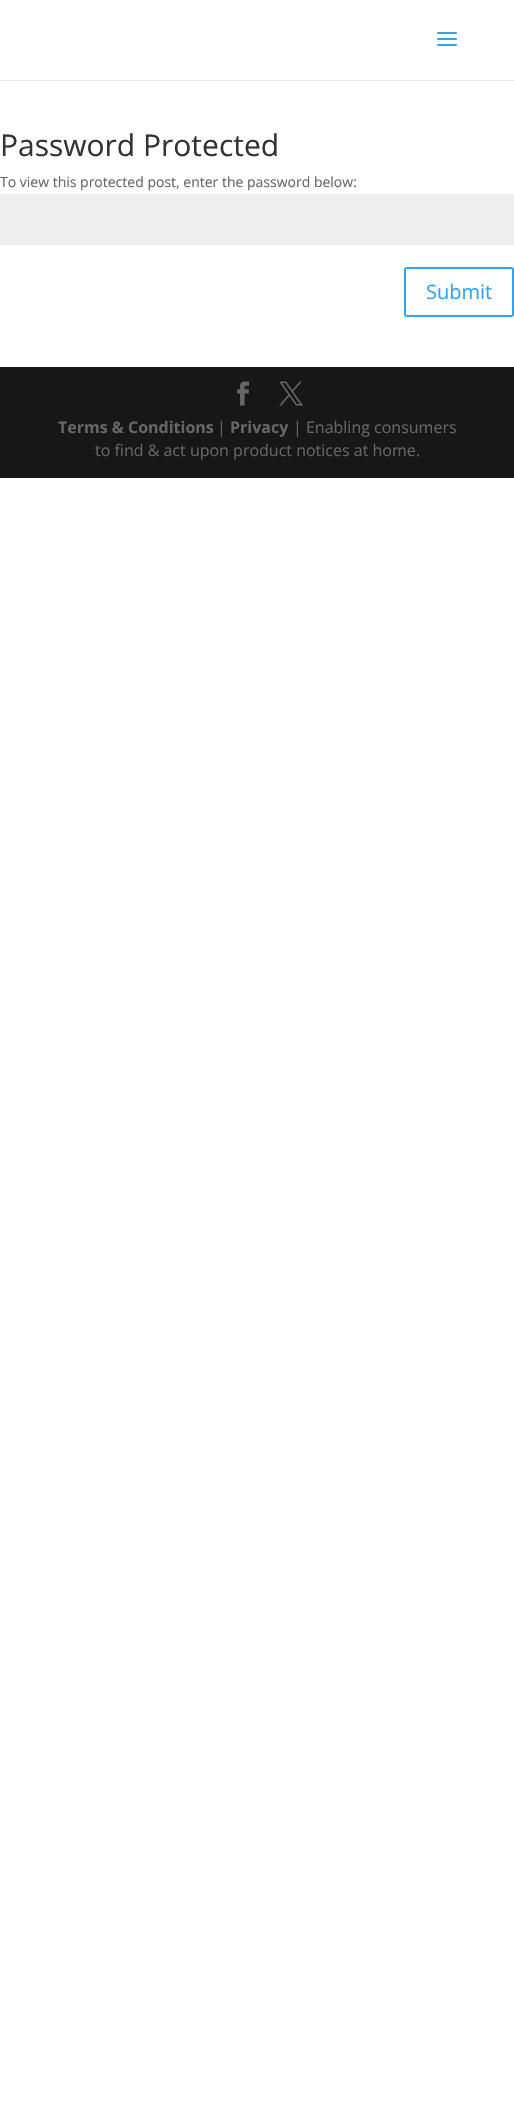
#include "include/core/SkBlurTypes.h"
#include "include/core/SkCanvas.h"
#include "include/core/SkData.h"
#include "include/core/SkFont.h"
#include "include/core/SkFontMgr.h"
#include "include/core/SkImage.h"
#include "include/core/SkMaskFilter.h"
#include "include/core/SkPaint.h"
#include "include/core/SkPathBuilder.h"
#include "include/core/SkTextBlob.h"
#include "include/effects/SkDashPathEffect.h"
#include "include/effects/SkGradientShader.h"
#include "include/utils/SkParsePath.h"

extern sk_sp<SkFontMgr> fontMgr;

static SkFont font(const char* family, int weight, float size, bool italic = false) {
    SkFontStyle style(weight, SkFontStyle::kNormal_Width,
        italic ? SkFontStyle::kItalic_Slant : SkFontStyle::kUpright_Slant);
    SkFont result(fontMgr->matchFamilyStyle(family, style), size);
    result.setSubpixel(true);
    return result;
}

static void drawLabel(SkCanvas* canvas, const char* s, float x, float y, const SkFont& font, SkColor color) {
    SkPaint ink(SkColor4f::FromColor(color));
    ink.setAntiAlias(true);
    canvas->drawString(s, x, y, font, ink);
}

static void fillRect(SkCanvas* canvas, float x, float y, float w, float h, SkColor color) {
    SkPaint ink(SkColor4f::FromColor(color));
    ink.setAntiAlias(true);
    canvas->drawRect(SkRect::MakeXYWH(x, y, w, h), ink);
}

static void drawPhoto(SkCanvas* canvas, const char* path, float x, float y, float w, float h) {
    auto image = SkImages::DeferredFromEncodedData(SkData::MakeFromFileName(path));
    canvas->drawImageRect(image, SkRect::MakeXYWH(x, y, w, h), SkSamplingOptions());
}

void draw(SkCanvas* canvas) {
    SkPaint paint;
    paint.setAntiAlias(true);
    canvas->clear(0xFFFFFFFF);
    fillRect(canvas, 0, 80, 514, 1, 0xFFE6E6E6);
    drawPhoto(canvas, "assets/img1.png", 437, 32, 20, 14);
    SkFont font1 = font("Open Sans", 400, 30);
    drawLabel(canvas, "Password Protected", 0, 156, font1, 0xFF333333);
    SkFont font2 = font("Open Sans", 400, 14);
    drawLabel(canvas, "To view this protected post, enter the password below:", 0, 187, font2, 0xFF666666);
    fillRect(canvas, 0, 194, 514, 51, 0xFFEEEEEE);
    paint.setStroke(true);
    paint.setStrokeWidth(2);
    paint.setColor(0xFF2EA3F2);
    canvas->drawRoundRect(SkRect::MakeXYWH(405, 268, 108, 48), 2, 2, paint);
    SkFont font3 = font("Open Sans", 400, 20);
    drawLabel(canvas, "Submit", 426, 299, font3, 0xFF2EA3F2);
    fillRect(canvas, 0, 367, 514, 111, 0xFF171717);
    drawPhoto(canvas, "assets/img2.png", 237, 381, 12, 25);
    drawPhoto(canvas, "assets/img3.png", 279, 381, 24, 25);
    SkFont font4 = font("Open Sans", 700, 16);
    drawLabel(canvas, "Terms & Conditions", 58, 433, font4, 0xFF666666);
    SkFont font5 = font("Open Sans", 400, 16);
    drawLabel(canvas, "|", 217, 433, font5, 0xFF666666);
    drawLabel(canvas, "Privacy", 230, 433, font4, 0xFF666666);
    drawLabel(canvas, "| Enabling consumers", 293, 433, font5, 0xFF666666);
    drawLabel(canvas, "to find & act upon product notices at home.", 95, 456, font5, 0xFF666666);
}
